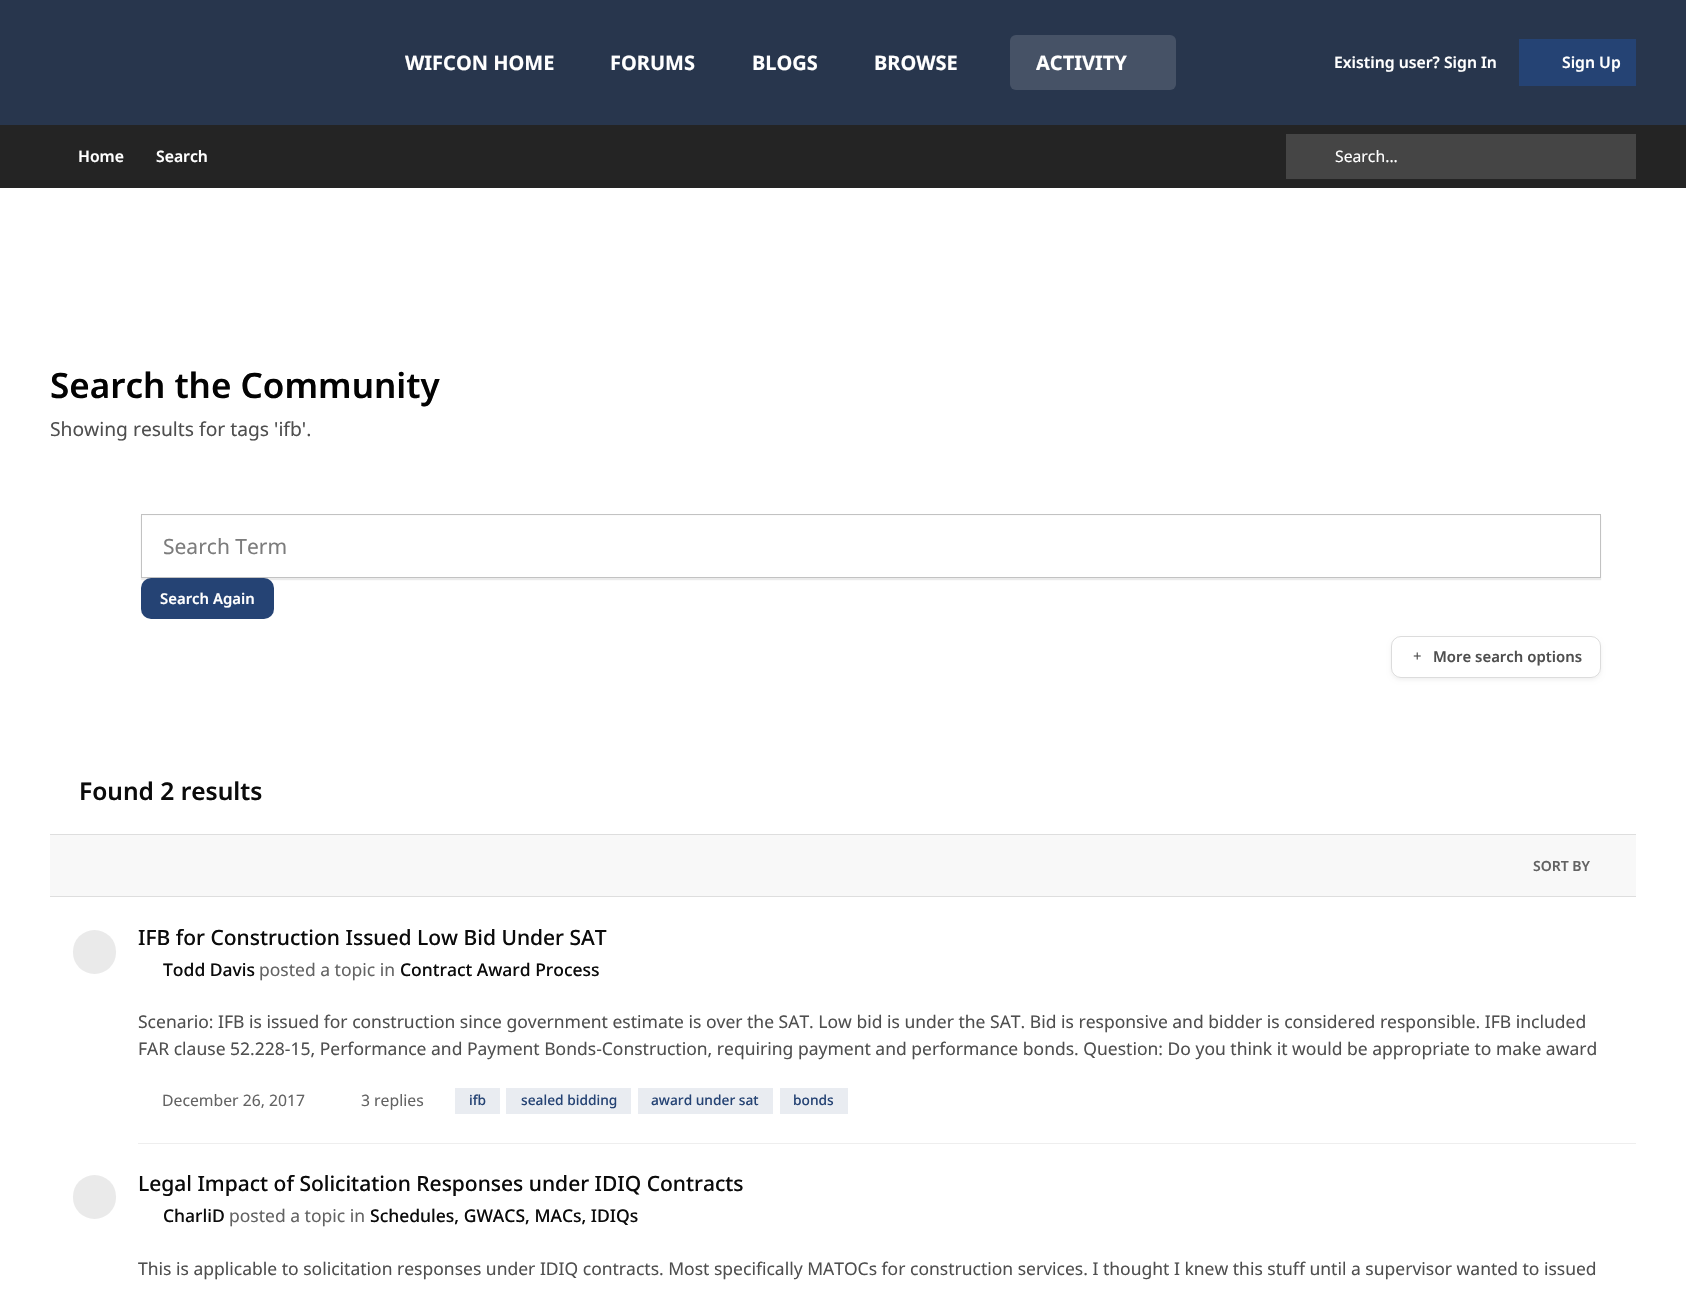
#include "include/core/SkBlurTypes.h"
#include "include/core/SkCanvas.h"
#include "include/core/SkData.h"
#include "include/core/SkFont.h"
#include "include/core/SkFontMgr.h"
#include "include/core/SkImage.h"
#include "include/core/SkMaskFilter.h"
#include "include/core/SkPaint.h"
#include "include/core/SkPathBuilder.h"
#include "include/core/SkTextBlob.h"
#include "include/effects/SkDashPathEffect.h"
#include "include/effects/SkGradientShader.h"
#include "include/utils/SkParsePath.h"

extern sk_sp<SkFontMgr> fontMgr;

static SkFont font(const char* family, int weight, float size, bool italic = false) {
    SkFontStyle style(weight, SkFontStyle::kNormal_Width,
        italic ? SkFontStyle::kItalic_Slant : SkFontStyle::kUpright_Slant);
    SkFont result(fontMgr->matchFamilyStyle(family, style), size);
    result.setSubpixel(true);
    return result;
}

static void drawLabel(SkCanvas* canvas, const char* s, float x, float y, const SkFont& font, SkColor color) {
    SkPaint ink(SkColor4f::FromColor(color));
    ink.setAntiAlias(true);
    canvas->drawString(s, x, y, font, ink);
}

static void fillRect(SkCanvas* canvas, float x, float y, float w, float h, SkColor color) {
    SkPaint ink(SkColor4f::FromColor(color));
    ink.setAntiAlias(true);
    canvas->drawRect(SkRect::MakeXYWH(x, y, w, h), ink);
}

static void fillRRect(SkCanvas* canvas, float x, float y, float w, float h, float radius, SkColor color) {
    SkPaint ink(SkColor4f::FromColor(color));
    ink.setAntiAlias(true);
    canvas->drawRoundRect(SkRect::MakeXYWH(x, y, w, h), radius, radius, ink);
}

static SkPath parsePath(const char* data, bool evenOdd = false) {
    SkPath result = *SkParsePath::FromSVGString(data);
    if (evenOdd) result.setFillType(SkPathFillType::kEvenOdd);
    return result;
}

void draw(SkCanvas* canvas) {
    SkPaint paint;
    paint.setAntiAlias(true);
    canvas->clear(0xFFFFFFFF);
    fillRect(canvas, 0, 0, 1686, 125, 0xFF28364D);
    SkFont font1 = font("Noto Sans", 700, 20);
    drawLabel(canvas, "WIFCON HOME", 405, 70, font1, 0xFFFFFFFF);
    drawLabel(canvas, "FORUMS", 610, 70, font1, 0xFFFFFFFF);
    drawLabel(canvas, "BLOGS", 752, 70, font1, 0xFFFFFFFF);
    drawLabel(canvas, "BROWSE", 874, 70, font1, 0xFFFFFFFF);
    fillRRect(canvas, 1010, 35, 166, 55, 6, 0xFF465266);
    drawLabel(canvas, "ACTIVITY", 1036, 70, font1, 0xFFFFFFFF);
    SkFont font2 = font("Noto Sans", 600, 15.75f);
    drawLabel(canvas, "Existing user? Sign In", 1334, 68, font2, 0xFFFFFFFF);
    fillRect(canvas, 1519, 39, 117, 47, 0xFF254374);
    drawLabel(canvas, "Sign Up", 1562, 68, font2, 0xFFFFFFFF);
    fillRect(canvas, 0, 125, 1686, 63, 0xFF242424);
    drawLabel(canvas, "Home", 78, 162, font2, 0xFFFFFFFF);
    drawLabel(canvas, "Search", 156, 162, font2, 0xFFFFFFFF);
    fillRect(canvas, 1286, 134, 350, 45, 0xFF454545);
    SkFont font3 = font("Noto Sans", 400, 15.75f);
    drawLabel(canvas, "Search...", 1335, 162, font3, 0xFFFFFFFF);
    SkFont font4 = font("Noto Sans", 600, 35);
    drawLabel(canvas, "Search the Community", 50, 398, font4, 0xFF030303);
    SkFont font5 = font("Noto Sans", 400, 19.25f);
    drawLabel(canvas, "Showing results for tags 'ifb'.", 50, 436, font5, 0xFF4F4F4F);
    paint.setColor(0x14000000);
    paint.setMaskFilter(SkMaskFilter::MakeBlur(kNormal_SkBlurStyle, 0.5f));
    canvas->drawRect(SkRect::MakeXYWH(141, 516, 1460, 64), paint);
    paint.setMaskFilter(nullptr);
    fillRect(canvas, 142, 516, 1458, 61, 0xFFFFFFFF);
    paint.setStroke(true);
    paint.setStrokeWidth(1);
    paint.setColor(0xFFC2C2C2);
    canvas->drawRect(SkRect::MakeXYWH(141.5f, 514.5f, 1459, 63), paint);
    SkFont font6 = font("Noto Sans", 400, 21);
    drawLabel(canvas, "Search Term", 163, 554, font6, 0xFF7C7C7C);
    fillRRect(canvas, 141, 578, 133, 41, 10, 0xFF254374);
    SkFont font7 = font("Noto Sans", 600, 14.9f);
    drawLabel(canvas, "Search Again", 160, 604, font7, 0xFFFFFFFF);
    canvas->save();
    canvas->clipPath(parsePath("M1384 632H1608V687H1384ZM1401 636H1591C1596.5 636 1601 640.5 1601 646V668C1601 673.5 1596.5 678 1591 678H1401C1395.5 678 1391 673.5 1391 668V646C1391 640.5 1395.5 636 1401 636Z", true), true);
    paint.setStroke(false);
    paint.setColor(0x0F000000);
    paint.setMaskFilter(SkMaskFilter::MakeBlur(kNormal_SkBlurStyle, 2));
    canvas->drawRoundRect(SkRect::MakeXYWH(1391, 639, 210, 41), 10, 10, paint);
    paint.setMaskFilter(nullptr);
    canvas->restore();
    paint.setStroke(true);
    paint.setColor(0x33505050);
    canvas->drawRoundRect(SkRect::MakeXYWH(1391.5f, 636.5f, 209, 41), 9.5f, 9.5f, paint);
    SkFont font8 = font("Liberation Serif", 700, 14.9f);
    drawLabel(canvas, "+", 1413, 661, font8, 0xFF4F4F4F);
    drawLabel(canvas, "More search options", 1433, 662, font7, 0xFF4F4F4F);
    fillRect(canvas, 50, 834, 1586, 1, 0xFFDEDEDE);
    SkFont font9 = font("Noto Sans", 600, 24.5f);
    drawLabel(canvas, "Found 2 results", 79, 800, font9, 0xFF0B0B0B);
    fillRect(canvas, 50, 835, 1586, 61, 0xFFF8F8F8);
    fillRect(canvas, 50, 896, 1586, 1, 0xFFDEDEDE);
    SkFont font10 = font("Noto Sans", 600, 14);
    drawLabel(canvas, "SORT BY", 1533, 871, font10, 0xFF636363);
    fillRRect(canvas, 73, 930, 43, 44, 21.5f, 0xFFEAEAEA);
    SkFont font11 = font("Noto Sans", 500, 21);
    drawLabel(canvas, "IFB for Construction Issued Low Bid Under SAT", 138, 945, font11, 0xFF0B0B0B);
    SkFont font12 = font("Noto Sans", 500, 17.5f);
    drawLabel(canvas, "Todd Davis", 163, 976, font12, 0xFF0B0B0B);
    SkFont font13 = font("Noto Sans", 400, 17.5f);
    drawLabel(canvas, "posted a topic in", 259, 976, font13, 0xFF636363);
    drawLabel(canvas, "Contract Award Process", 400, 976, font12, 0xFF0B0B0B);
    drawLabel(canvas, "Scenario: IFB is issued for construction since government estimate is over the SAT. Low bid is under the SAT. Bid is responsive and bidder is considered responsible. IFB included", 138, 1028, font13, 0xFF4F4F4F);
    drawLabel(canvas, "FAR clause 52.228-15, Performance and Payment Bonds-Construction, requiring payment and performance bonds. Question: Do you think it would be appropriate to make award", 138, 1055, font13, 0xFF4F4F4F);
    drawLabel(canvas, "December 26, 2017", 162, 1106, font3, 0xFF636363);
    drawLabel(canvas, "3 replies", 361, 1106, font3, 0xFF636363);
    fillRect(canvas, 455, 1088, 45, 26, 0xFFE9ECF1);
    SkFont font14 = font("Noto Sans", 500, 13.75f);
    drawLabel(canvas, "ifb", 469, 1105, font14, 0xFF254374);
    fillRect(canvas, 506, 1088, 125, 26, 0xFFE9ECF1);
    drawLabel(canvas, "sealed bidding", 521, 1105, font14, 0xFF254374);
    fillRect(canvas, 638, 1088, 135, 26, 0xFFE9ECF1);
    drawLabel(canvas, "award under sat", 651, 1105, font14, 0xFF254374);
    fillRect(canvas, 780, 1088, 68, 26, 0xFFE9ECF1);
    drawLabel(canvas, "bonds", 793, 1105, font14, 0xFF254374);
    fillRRect(canvas, 73, 1175, 43, 44, 21.5f, 0xFFEAEAEA);
    fillRect(canvas, 138, 1143, 1498, 1, 0xFFEEEEEE);
    drawLabel(canvas, "Legal Impact of Solicitation Responses under IDIQ Contracts", 138, 1191, font11, 0xFF0B0B0B);
    drawLabel(canvas, "CharliD", 163, 1222, font12, 0xFF0B0B0B);
    drawLabel(canvas, "posted a topic in", 229, 1222, font13, 0xFF636363);
    drawLabel(canvas, "Schedules, GWACS, MACs, IDIQs", 370, 1222, font12, 0xFF0B0B0B);
    drawLabel(canvas, "This is applicable to solicitation responses under IDIQ contracts. Most specifically MATOCs for construction services. I thought I knew this stuff until a supervisor wanted to issued", 138, 1275, font13, 0xFF4F4F4F);
}
